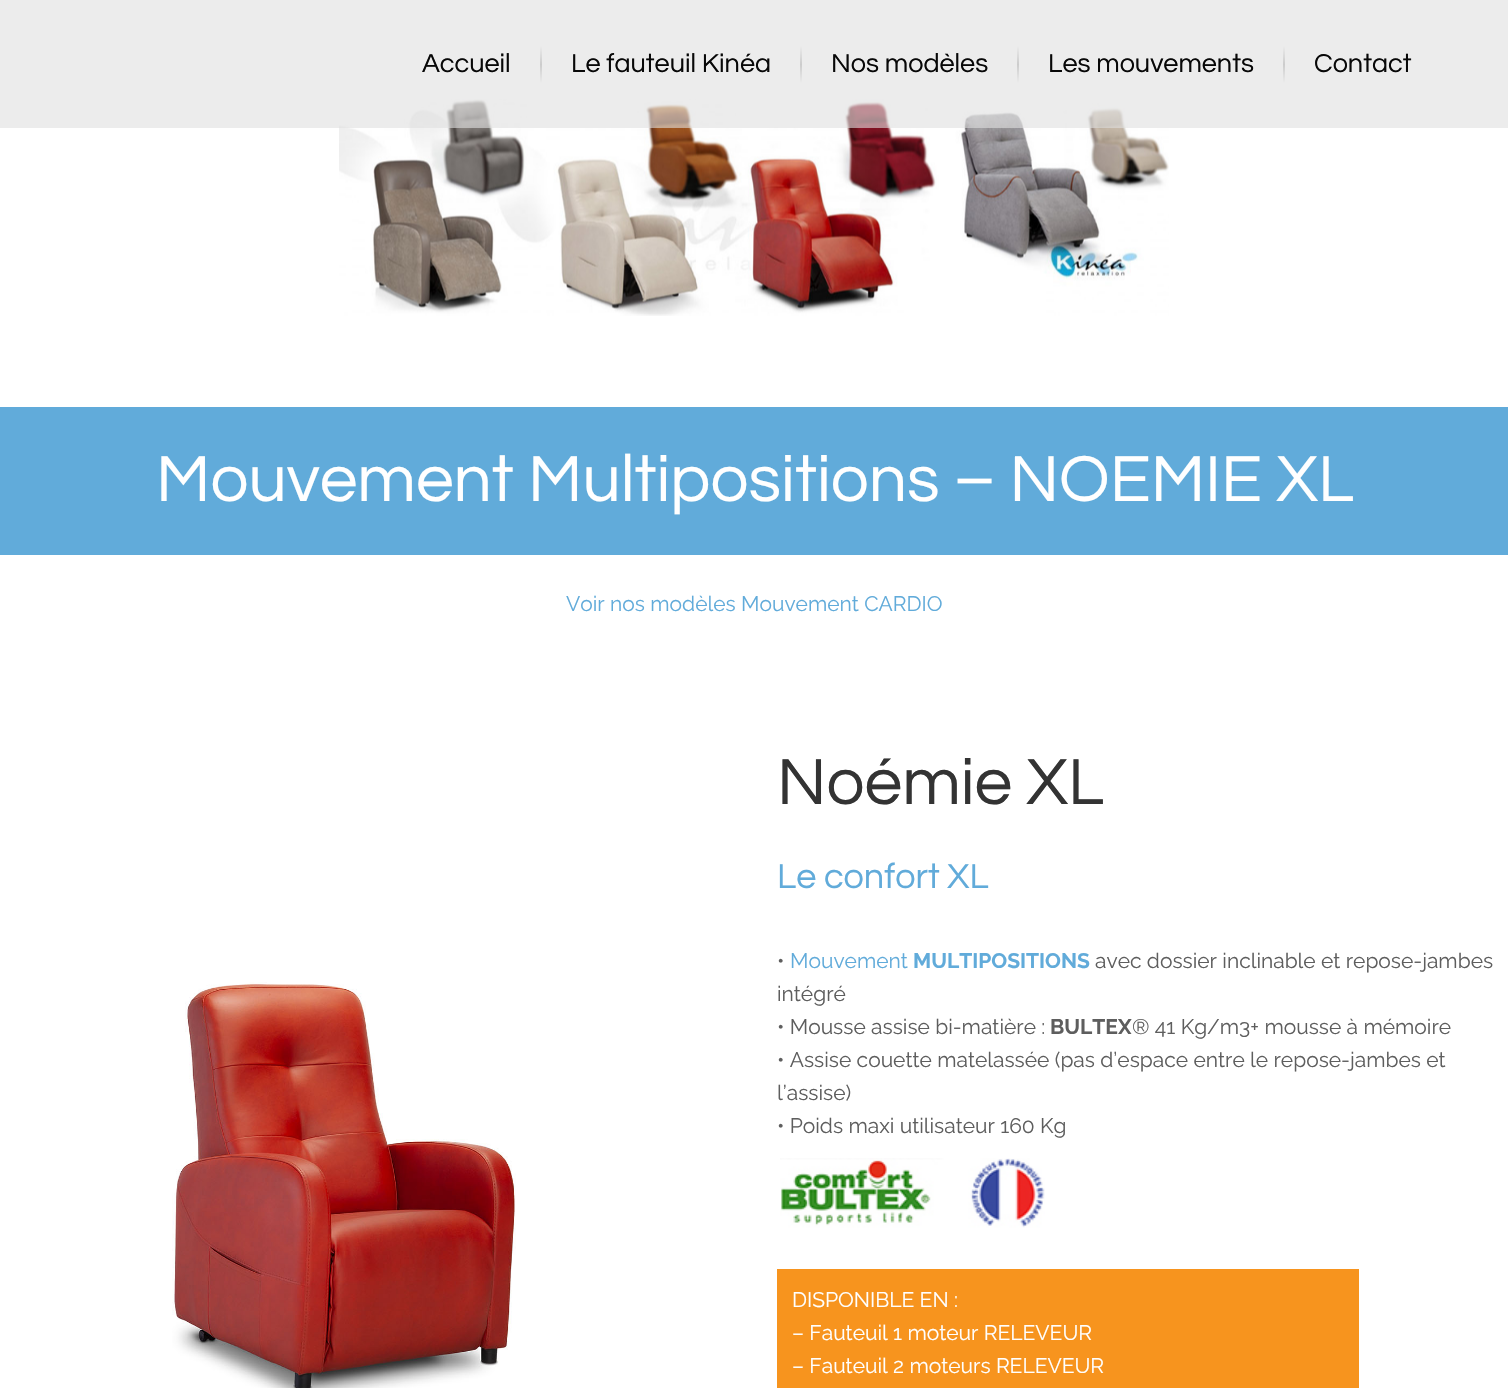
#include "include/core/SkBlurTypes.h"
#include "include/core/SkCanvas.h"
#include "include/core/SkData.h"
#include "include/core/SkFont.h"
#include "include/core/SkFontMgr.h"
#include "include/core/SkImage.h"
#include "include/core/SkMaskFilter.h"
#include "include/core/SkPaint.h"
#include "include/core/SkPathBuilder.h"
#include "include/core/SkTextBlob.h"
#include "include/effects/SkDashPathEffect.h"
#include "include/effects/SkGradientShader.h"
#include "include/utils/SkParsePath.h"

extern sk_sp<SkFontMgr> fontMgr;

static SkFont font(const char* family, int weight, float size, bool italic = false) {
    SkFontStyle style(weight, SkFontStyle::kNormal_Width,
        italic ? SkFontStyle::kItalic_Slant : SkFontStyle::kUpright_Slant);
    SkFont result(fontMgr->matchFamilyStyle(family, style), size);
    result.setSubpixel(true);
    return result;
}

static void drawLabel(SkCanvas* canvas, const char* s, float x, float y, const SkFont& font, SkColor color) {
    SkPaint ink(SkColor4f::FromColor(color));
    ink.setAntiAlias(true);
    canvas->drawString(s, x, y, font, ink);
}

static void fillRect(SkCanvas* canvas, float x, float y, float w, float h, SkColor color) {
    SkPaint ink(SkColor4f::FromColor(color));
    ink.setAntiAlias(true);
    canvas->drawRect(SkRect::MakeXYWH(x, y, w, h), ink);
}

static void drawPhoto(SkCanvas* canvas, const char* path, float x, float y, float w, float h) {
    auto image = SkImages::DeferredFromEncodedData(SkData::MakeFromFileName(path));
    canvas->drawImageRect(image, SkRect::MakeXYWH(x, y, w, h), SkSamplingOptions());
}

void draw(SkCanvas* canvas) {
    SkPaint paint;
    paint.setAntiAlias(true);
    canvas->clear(0xFFFFFFFF);
    drawPhoto(canvas, "assets/img1.png", 339, 99, 830, 217);
    fillRect(canvas, 0, 0, 1508, 128, 0x99E0E0E0);
    SkFont font1 = font("Questrial", 400, 27);
    drawLabel(canvas, "Accueil", 422, 72, font1, 0xFF080808);
    {
        const SkColor colors[] = {0xFFECECEC, 0xFFCCCCCC, 0xFFECECEC};
        const float stops[] = {0.13f, 0.5f, 0.87f};
        const SkPoint ends[] = {{541, 39}, {541, 90}};
        paint.setShader(SkGradientShader::MakeLinear(ends, colors, stops, 3, SkTileMode::kClamp));
        paint.setAlpha(255);
    }
    canvas->drawRect(SkRect::MakeXYWH(540, 39, 2, 51), paint);
    drawLabel(canvas, "Le fauteuil Kinéa", 571, 72, font1, 0xFF080808);
    {
        const SkColor colors[] = {0xFFECECEC, 0xFFCCCCCC, 0xFFECECEC};
        const float stops[] = {0.13f, 0.5f, 0.87f};
        const SkPoint ends[] = {{800, 39}, {800, 90}};
        paint.setShader(SkGradientShader::MakeLinear(ends, colors, stops, 3, SkTileMode::kClamp));
        paint.setAlpha(255);
    }
    canvas->drawRect(SkRect::MakeXYWH(800, 39, 2, 51), paint);
    drawLabel(canvas, "Nos modèles", 831, 72, font1, 0xFF080808);
    {
        const SkColor colors[] = {0xFFECECEC, 0xFFCCCCCC, 0xFFECECEC};
        const float stops[] = {0.13f, 0.5f, 0.87f};
        const SkPoint ends[] = {{1018, 39}, {1018, 90}};
        paint.setShader(SkGradientShader::MakeLinear(ends, colors, stops, 3, SkTileMode::kClamp));
        paint.setAlpha(255);
    }
    canvas->drawRect(SkRect::MakeXYWH(1017, 39, 2, 51), paint);
    drawLabel(canvas, "Les mouvements", 1048, 72, font1, 0xFF080808);
    {
        const SkColor colors[] = {0xFFECECEC, 0xFFCCCCCC, 0xFFECECEC};
        const float stops[] = {0.13f, 0.5f, 0.87f};
        const SkPoint ends[] = {{1283, 39}, {1283, 90}};
        paint.setShader(SkGradientShader::MakeLinear(ends, colors, stops, 3, SkTileMode::kClamp));
        paint.setAlpha(255);
    }
    canvas->drawRect(SkRect::MakeXYWH(1283, 39, 2, 51), paint);
    drawLabel(canvas, "Contact", 1314, 72, font1, 0xFF080808);
    fillRect(canvas, 0, 407, 1508, 148, 0xFF61ABDA);
    SkFont font2 = font("Questrial", 400, 67.5f);
    drawLabel(canvas, "Mouvement Multipositions – NOEMIE XL", 156, 501, font2, 0xFFFFFFFF);
    SkFont font3 = font("Raleway", 400, 21);
    drawLabel(canvas, "Voir nos modèles Mouvement CARDIO", 566, 611, font3, 0xFF61ABDA);
    drawLabel(canvas, "Noémie XL", 777, 804, font2, 0xFF333333);
    SkFont font4 = font("Questrial", 400, 36);
    drawLabel(canvas, "Le confort XL", 777, 888, font4, 0xFF61ABDA);
    drawPhoto(canvas, "assets/img2.png", 172, 982, 344, 406);
    drawLabel(canvas, "•", 777, 968, font3, 0xFF5E5E5E);
    drawLabel(canvas, "Mouvement", 790, 968, font3, 0xFF61ABDA);
    SkFont font5 = font("Raleway", 700, 21);
    drawLabel(canvas, "MULTIPOSITIONS", 913, 968, font5, 0xFF61ABDA);
    drawLabel(canvas, "avec dossier inclinable et repose-jambes", 1095, 968, font3, 0xFF5E5E5E);
    drawLabel(canvas, "intégré", 777, 1001, font3, 0xFF5E5E5E);
    drawLabel(canvas, "• Mousse assise bi-matière :", 777, 1034, font3, 0xFF5E5E5E);
    drawLabel(canvas, "BULTEX", 1050, 1034, font5, 0xFF5E5E5E);
    drawLabel(canvas, "® 41 Kg/m3+ mousse à mémoire", 1132, 1034, font3, 0xFF5E5E5E);
    drawLabel(canvas, "• Assise couette matelassée (pas d’espace entre le repose-jambes et", 777, 1067, font3, 0xFF5E5E5E);
    drawLabel(canvas, "l’assise)", 777, 1100, font3, 0xFF5E5E5E);
    drawLabel(canvas, "• Poids maxi utilisateur 160 Kg", 777, 1133, font3, 0xFF5E5E5E);
    drawPhoto(canvas, "assets/img3.png", 780, 1158, 265, 70);
    fillRect(canvas, 777, 1269, 582, 119, 0xFFF7941E);
    drawLabel(canvas, "DISPONIBLE EN :", 792, 1307, font3, 0xFFFFFFFF);
    drawLabel(canvas, "– Fauteuil 1 moteur RELEVEUR", 792, 1340, font3, 0xFFFFFFFF);
    drawLabel(canvas, "– Fauteuil 2 moteurs RELEVEUR", 792, 1373, font3, 0xFFFFFFFF);
}
